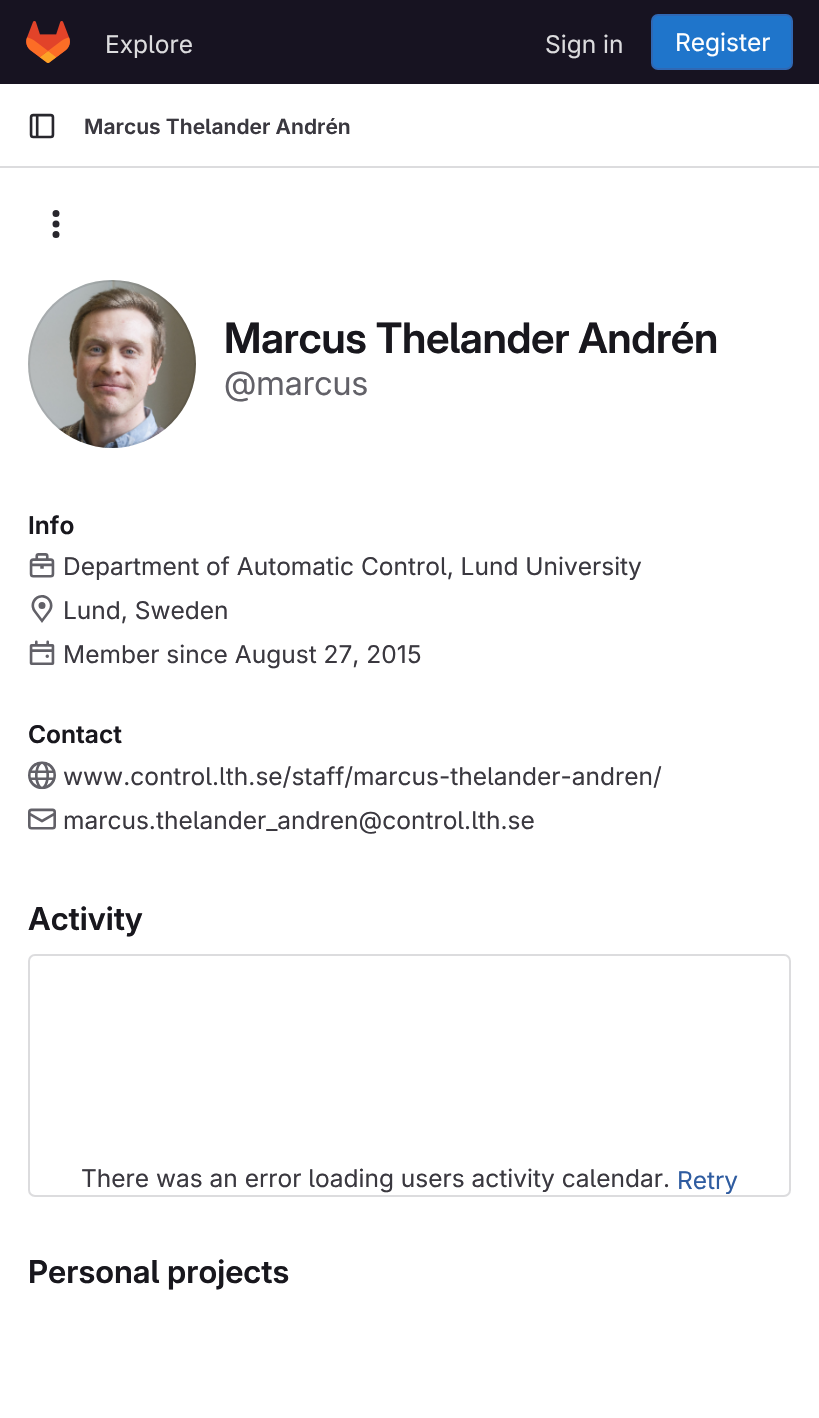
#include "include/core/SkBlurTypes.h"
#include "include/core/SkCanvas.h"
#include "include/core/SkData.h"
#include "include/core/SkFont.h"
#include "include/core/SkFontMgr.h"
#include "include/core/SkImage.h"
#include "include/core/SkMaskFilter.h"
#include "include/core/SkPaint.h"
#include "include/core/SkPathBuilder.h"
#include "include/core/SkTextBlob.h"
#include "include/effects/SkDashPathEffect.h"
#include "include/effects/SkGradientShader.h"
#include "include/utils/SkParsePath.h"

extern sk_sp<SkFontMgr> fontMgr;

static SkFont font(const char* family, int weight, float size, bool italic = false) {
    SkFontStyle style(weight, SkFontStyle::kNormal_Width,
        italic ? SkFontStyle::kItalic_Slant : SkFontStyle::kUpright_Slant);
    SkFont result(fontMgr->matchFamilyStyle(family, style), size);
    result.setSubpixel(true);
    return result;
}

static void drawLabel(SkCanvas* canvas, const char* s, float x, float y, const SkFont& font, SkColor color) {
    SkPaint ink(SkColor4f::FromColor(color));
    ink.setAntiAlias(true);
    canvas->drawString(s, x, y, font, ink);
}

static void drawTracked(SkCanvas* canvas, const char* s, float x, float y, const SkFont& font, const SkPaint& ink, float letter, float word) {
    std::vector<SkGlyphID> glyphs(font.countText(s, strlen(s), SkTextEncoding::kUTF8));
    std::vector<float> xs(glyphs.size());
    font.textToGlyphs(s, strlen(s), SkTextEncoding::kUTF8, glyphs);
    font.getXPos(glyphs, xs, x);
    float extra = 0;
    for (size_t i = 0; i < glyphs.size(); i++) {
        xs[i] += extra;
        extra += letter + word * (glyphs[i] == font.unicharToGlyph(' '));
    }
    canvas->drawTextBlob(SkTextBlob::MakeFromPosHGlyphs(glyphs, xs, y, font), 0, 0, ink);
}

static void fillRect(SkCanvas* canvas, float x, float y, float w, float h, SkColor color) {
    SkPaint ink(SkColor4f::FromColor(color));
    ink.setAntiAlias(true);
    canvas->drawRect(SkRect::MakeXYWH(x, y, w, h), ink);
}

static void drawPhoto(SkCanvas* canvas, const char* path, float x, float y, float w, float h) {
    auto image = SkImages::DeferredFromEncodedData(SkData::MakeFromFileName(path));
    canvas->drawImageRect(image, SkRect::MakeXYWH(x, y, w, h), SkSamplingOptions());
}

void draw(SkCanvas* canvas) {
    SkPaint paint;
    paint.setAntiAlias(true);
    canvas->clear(0xFFFFFFFF);
    fillRect(canvas, 0, 0, 819, 84, 0xFF171321);
    drawPhoto(canvas, "assets/img1.png", 26, 21, 44, 42);
    SkFont font1 = font("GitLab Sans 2", 400, 24.5f);
    drawLabel(canvas, "Explore", 105, 53, font1, 0xFFDCDCDE);
    drawLabel(canvas, "Sign in", 545, 53, font1, 0xFFDCDCDE);
    paint.setColor(0xFF1F75CB);
    canvas->drawRoundRect(SkRect::MakeXYWH(652, 15, 140, 54), 6, 6, paint);
    paint.setStroke(true);
    paint.setStrokeWidth(2);
    paint.setColor(0xFF2F68B4);
    canvas->drawRoundRect(SkRect::MakeXYWH(652, 15, 140, 54), 6, 6, paint);
    drawLabel(canvas, "Register", 675, 51, font1, 0xFFFFFFFF);
    fillRect(canvas, 0, 166, 819, 2, 0xFFDCDCDE);
    drawPhoto(canvas, "assets/img2.png", 29, 113, 26, 26);
    SkFont font2 = font("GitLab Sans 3", 600, 21);
    drawLabel(canvas, "Marcus Thelander Andrén", 84, 134, font2, 0xFF3A383F);
    drawPhoto(canvas, "assets/img3.png", 52, 210, 8, 28);
    drawPhoto(canvas, "assets/img4.png", 28, 280, 168, 168);
    paint.setColor(0x14050506);
    canvas->drawCircle(112, 364, 83, paint);
    SkFont font3 = font("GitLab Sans", 600, 42);
    paint.setStroke(false);
    paint.setColor(0xFF18171D);
    drawTracked(canvas, "Marcus Thelander Andrén", 224, 353, font3, paint, -0.4f, 0);
    SkFont font4 = font("GitLab Sans", 400, 33.25f);
    drawLabel(canvas, "@marcus", 224, 395, font4, 0xFF626168);
    SkFont font5 = font("GitLab Sans 3", 600, 24.5f);
    drawLabel(canvas, "Info", 28, 534, font5, 0xFF18171D);
    drawPhoto(canvas, "assets/img5.png", 29, 553, 26, 25);
    drawLabel(canvas, "Department of Automatic Control, Lund University", 63, 575, font1, 0xFF3A383F);
    drawPhoto(canvas, "assets/img6.png", 31, 595, 22, 28);
    drawLabel(canvas, "Lund, Sweden", 63, 619, font1, 0xFF3A383F);
    drawPhoto(canvas, "assets/img7.png", 29, 640, 26, 25);
    drawLabel(canvas, "Member since August 27, 2015", 63, 663, font1, 0xFF3A383F);
    drawLabel(canvas, "Contact", 28, 743, font5, 0xFF18171D);
    drawPhoto(canvas, "assets/img8.png", 28, 761, 28, 29);
    drawLabel(canvas, "www.control.lth.se/staff/marcus-thelander-andren/", 63, 785, font1, 0xFF3A383F);
    drawPhoto(canvas, "assets/img9.png", 28, 808, 28, 22);
    drawLabel(canvas, "marcus.thelander_andren@control.lth.se", 63, 829, font1, 0xFF3A383F);
    SkFont font6 = font("GitLab Sans 2", 600, 31.5f);
    drawLabel(canvas, "Activity", 28, 930, font6, 0xFF18171D);
    paint.setStroke(true);
    paint.setColor(0xFFDCDCDE);
    canvas->drawRoundRect(SkRect::MakeXYWH(29, 955, 761, 241), 6, 6, paint);
    drawLabel(canvas, "There was an error loading users activity calendar.", 81, 1187, font1, 0xFF3A383F);
    drawLabel(canvas, "Retry", 677, 1189, font1, 0xFF2F5CA0);
    drawLabel(canvas, "Personal projects", 28, 1283, font6, 0xFF18171D);
}
